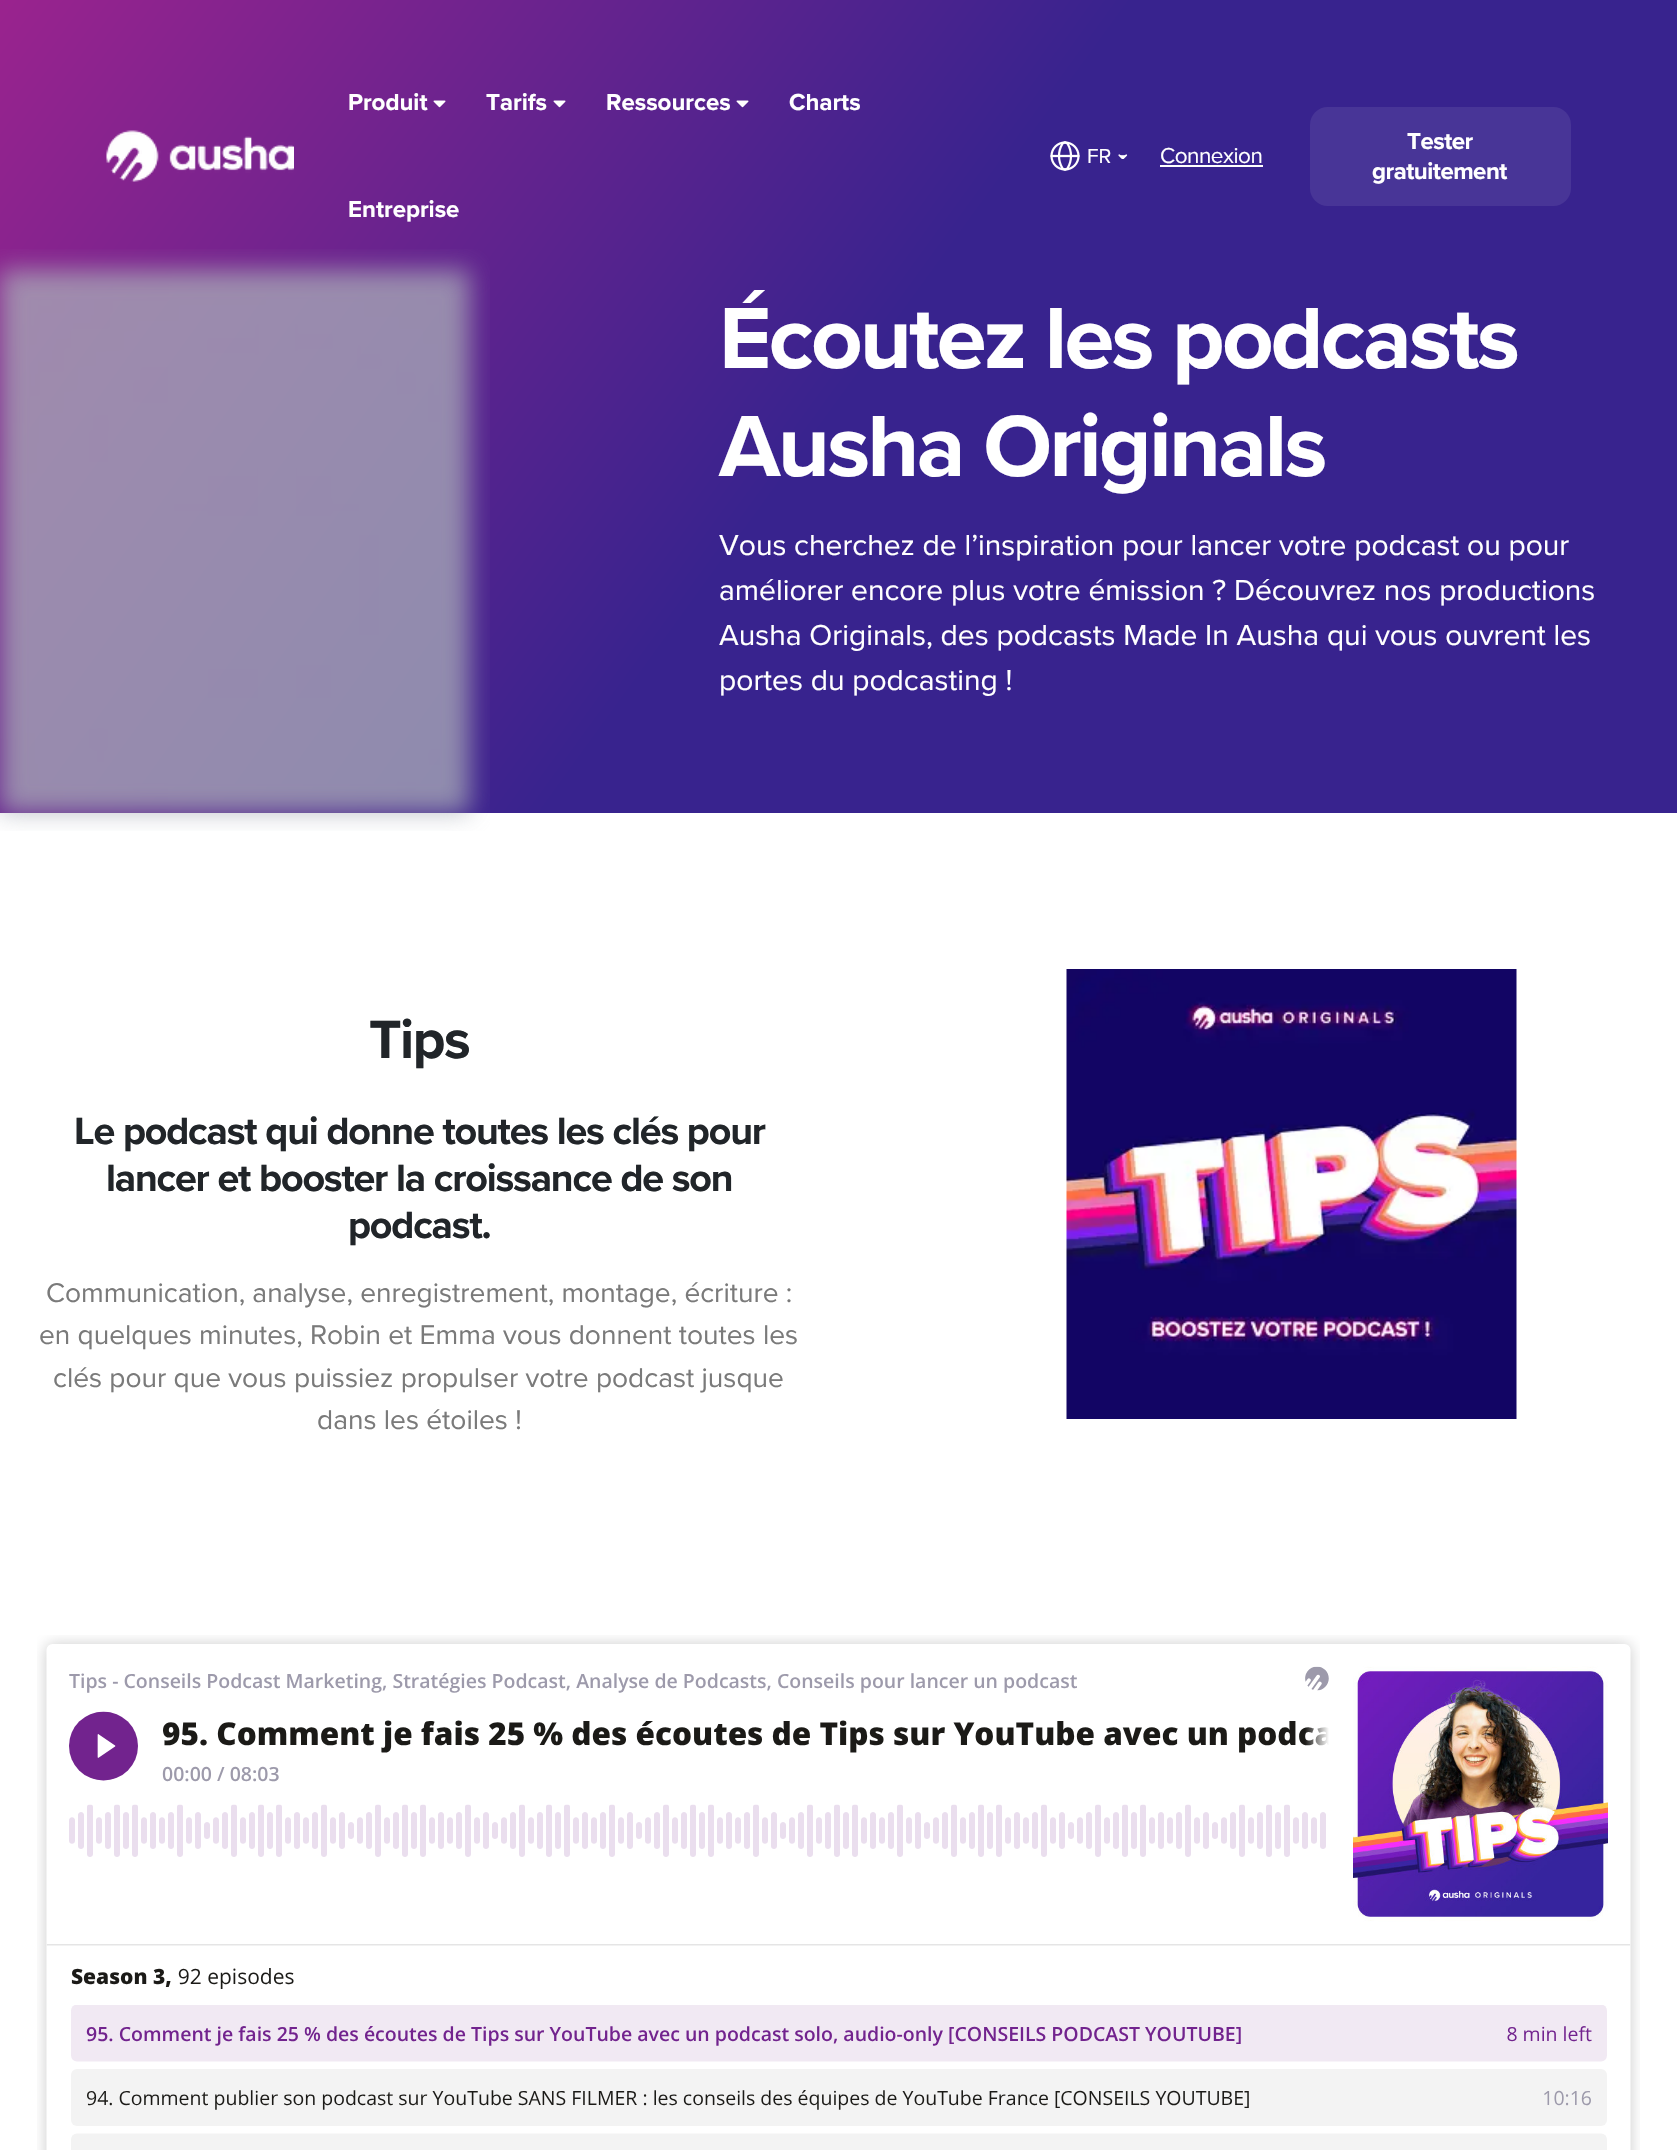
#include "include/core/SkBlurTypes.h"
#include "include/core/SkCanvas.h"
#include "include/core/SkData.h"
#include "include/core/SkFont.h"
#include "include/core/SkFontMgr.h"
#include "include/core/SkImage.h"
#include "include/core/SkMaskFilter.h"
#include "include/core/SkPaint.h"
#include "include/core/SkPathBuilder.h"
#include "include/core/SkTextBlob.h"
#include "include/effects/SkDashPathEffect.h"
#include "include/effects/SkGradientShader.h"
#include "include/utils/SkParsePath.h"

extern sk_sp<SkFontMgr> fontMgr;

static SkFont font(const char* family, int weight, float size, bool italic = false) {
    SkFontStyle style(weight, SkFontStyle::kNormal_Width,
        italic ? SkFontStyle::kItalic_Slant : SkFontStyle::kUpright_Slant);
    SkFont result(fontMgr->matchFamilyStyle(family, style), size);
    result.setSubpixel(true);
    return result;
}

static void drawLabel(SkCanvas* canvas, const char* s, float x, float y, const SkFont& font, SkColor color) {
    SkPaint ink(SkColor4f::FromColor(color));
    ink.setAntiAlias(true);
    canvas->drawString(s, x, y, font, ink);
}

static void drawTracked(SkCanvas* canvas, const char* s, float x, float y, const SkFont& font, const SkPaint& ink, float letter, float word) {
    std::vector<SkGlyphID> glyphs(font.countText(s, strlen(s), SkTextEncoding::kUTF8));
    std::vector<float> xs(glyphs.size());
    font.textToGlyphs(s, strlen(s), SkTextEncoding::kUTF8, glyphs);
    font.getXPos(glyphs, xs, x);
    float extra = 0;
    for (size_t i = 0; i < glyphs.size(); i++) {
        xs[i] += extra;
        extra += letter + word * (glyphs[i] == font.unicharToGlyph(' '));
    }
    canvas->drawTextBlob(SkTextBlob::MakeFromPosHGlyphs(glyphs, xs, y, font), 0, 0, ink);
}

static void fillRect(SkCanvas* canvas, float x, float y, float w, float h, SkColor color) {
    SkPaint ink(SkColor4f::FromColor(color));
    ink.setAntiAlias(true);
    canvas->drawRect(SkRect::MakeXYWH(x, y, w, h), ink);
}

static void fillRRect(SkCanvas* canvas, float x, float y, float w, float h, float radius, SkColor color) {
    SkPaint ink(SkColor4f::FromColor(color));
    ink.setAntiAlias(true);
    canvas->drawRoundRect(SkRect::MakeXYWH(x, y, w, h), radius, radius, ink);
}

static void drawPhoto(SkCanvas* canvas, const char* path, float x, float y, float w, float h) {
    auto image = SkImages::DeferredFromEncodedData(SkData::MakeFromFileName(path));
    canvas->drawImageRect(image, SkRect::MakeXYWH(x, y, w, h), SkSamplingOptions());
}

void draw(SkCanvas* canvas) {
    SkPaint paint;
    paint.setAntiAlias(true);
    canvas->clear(0xFFFFFFFF);
    {
        const SkColor colors[] = {0xFF9A238E, 0xFF38238E};
        const float stops[] = {0, 0.5f};
        const SkPoint ends[] = {{96, -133}, {1581, 946}};
        paint.setShader(SkGradientShader::MakeLinear(ends, colors, stops, 2, SkTileMode::kClamp));
        paint.setAlpha(255);
    }
    canvas->drawRect(SkRect::MakeXYWH(0, 0, 1677, 813), paint);
    drawPhoto(canvas, "assets/img1.png", 106, 130, 188, 52);
    SkFont font1 = font("Proxima Nova", 700, 24);
    drawLabel(canvas, "Produit", 348, 110, font1, 0xFFFFFFFF);
    drawPhoto(canvas, "assets/img2.png", 433, 100, 13, 8);
    drawLabel(canvas, "Tarifs", 486, 110, font1, 0xFFFFFFFF);
    drawPhoto(canvas, "assets/img3.png", 553, 100, 13, 8);
    drawLabel(canvas, "Ressources", 606, 110, font1, 0xFFFFFFFF);
    drawPhoto(canvas, "assets/img4.png", 736, 100, 13, 8);
    drawLabel(canvas, "Charts", 789, 110, font1, 0xFFFFFFFF);
    drawLabel(canvas, "Entreprise", 348, 217, font1, 0xFFFFFFFF);
    drawPhoto(canvas, "assets/img5.png", 1050, 141, 30, 30);
    SkFont font2 = font("Proxima Nova", 400, 21);
    drawLabel(canvas, "FR", 1087, 163, font2, 0xFFFFFFFF);
    drawPhoto(canvas, "assets/img6.png", 1118, 154, 10, 5);
    SkFont font3 = font("Proxima Nova", 400, 22.5f);
    paint.setShader(nullptr);
    paint.setColor(0xFFFFFFFF);
    drawTracked(canvas, "Connexion", 1160, 163, font3, paint, -0.5f, 0);
    fillRect(canvas, 1160, 165, 103, 2, 0xFFFFFFFF);
    fillRRect(canvas, 1310, 107, 261, 99, 18, 0xFF483597);
    drawTracked(canvas, "Tester", 1407, 149, font1, paint, -0.5f, 0);
    drawTracked(canvas, "gratuitement", 1372, 179, font1, paint, -0.5f, 0);
    drawPhoto(canvas, "assets/img7.png", 0, 249, 490, 582);
    SkFont font4 = font("Proxima Nova", 700, 90);
    drawTracked(canvas, "Écoutez les podcasts", 719, 368, font4, paint, -2.75f, 0);
    drawTracked(canvas, "Ausha Originals", 719, 476, font4, paint, -2.75f, 0);
    SkFont font5 = font("Proxima Nova", 400, 30);
    drawLabel(canvas, "Vous cherchez de l’inspiration pour lancer votre podcast ou pour", 719, 555, font5, 0xFFFFFFFF);
    drawLabel(canvas, "améliorer encore plus votre émission ? Découvrez nos productions", 719, 600, font5, 0xFFFFFFFF);
    drawLabel(canvas, "Ausha Originals, des podcasts Made In Ausha qui vous ouvrent les", 719, 645, font5, 0xFFFFFFFF);
    drawLabel(canvas, "portes du podcasting !", 719, 690, font5, 0xFFFFFFFF);
    SkFont font6 = font("Proxima Nova", 700, 56);
    paint.setColor(0xFF212529);
    drawTracked(canvas, "Tips", 369, 1058, font6, paint, -1.5f, 0);
    SkFont font7 = font("Proxima Nova", 700, 39.4f);
    drawTracked(canvas, "Le podcast qui donne toutes les clés pour", 74, 1144, font7, paint, -1.2f, 0);
    drawTracked(canvas, "lancer et booster la croissance de son", 106, 1191, font7, paint, -1.2f, 0);
    drawTracked(canvas, "podcast.", 348, 1238, font7, paint, -1.2f, 0);
    SkFont font8 = font("Proxima Nova", 400, 28.1f);
    drawLabel(canvas, "Communication, analyse, enregistrement, montage, écriture :", 46, 1302, font8, 0xFF7A7A7A);
    drawLabel(canvas, "en quelques minutes, Robin et Emma vous donnent toutes les", 39, 1344, font8, 0xFF7A7A7A);
    drawLabel(canvas, "clés pour que vous puissiez propulser votre podcast jusque", 53, 1387, font8, 0xFF7A7A7A);
    drawLabel(canvas, "dans les étoiles !", 317, 1429, font8, 0xFF7A7A7A);
    drawPhoto(canvas, "assets/img8.png", 1066, 969, 451, 450);
    drawPhoto(canvas, "assets/img9.png", 37, 1635, 1603, 515);
}
